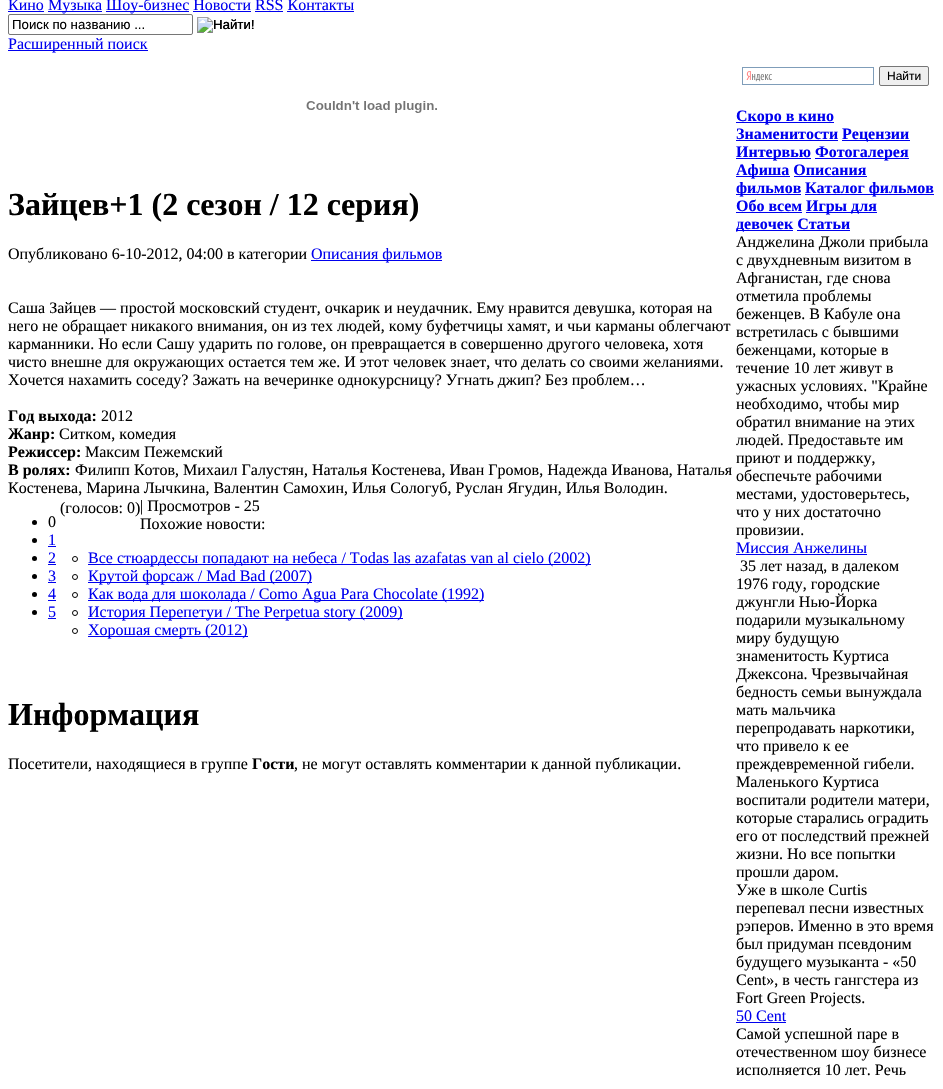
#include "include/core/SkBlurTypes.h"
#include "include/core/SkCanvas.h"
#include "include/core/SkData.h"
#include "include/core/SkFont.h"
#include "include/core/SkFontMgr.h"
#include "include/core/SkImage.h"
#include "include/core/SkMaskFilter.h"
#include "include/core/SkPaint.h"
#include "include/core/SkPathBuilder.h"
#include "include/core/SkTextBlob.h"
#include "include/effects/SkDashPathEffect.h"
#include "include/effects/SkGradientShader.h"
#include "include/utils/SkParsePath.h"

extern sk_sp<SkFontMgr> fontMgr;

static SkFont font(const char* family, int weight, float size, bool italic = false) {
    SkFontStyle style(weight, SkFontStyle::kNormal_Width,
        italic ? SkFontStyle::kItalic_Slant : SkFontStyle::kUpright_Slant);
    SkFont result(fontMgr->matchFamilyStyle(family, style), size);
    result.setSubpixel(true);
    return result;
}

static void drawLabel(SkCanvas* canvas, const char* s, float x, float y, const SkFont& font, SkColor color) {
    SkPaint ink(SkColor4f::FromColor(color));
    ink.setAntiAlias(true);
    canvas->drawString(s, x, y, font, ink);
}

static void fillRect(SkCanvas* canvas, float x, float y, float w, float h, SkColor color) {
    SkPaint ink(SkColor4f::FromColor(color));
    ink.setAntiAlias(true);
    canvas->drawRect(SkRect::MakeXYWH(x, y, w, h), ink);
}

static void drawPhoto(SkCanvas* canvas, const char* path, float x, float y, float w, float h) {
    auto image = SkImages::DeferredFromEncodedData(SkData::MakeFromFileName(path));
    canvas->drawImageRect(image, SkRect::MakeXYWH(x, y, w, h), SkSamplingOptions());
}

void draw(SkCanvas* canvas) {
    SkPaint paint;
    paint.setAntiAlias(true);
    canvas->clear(0xFFFFFFFF);
    SkFont font1 = font("Liberation Serif", 400, 16);
    drawLabel(canvas, "Кино", 8, 10, font1, 0xFF0000EE);
    fillRect(canvas, 8, 11, 36, 1, 0xFF0000EE);
    fillRect(canvas, 48, 11, 54, 1, 0xFF0000EE);
    drawLabel(canvas, "Музыка", 48, 10, font1, 0xFF0000EE);
    fillRect(canvas, 106, 11, 83, 1, 0xFF0000EE);
    drawLabel(canvas, "Шоу-бизнес Новости RSS Контакты", 106, 10, font1, 0xFF0000EE);
    fillRect(canvas, 193, 11, 58, 1, 0xFF0000EE);
    fillRect(canvas, 255, 11, 28, 1, 0xFF0000EE);
    fillRect(canvas, 287, 11, 67, 1, 0xFF0000EE);
    paint.setStroke(true);
    paint.setStrokeWidth(1);
    paint.setColor(0xFF767676);
    canvas->drawRoundRect(SkRect::MakeXYWH(8.5f, 14.5f, 184, 20), 1.5f, 1.5f, paint);
    SkFont font2 = font("Liberation Sans", 400, 13.25f);
    drawLabel(canvas, "Поиск по названию ...", 12, 29, font2, 0xFF000000);
    drawPhoto(canvas, "assets/img1.png", 197, 17, 57, 16);
    drawLabel(canvas, "Найти!", 213, 29, font2, 0xFF000000);
    fillRect(canvas, 8, 50, 140, 1, 0xFF0000EE);
    drawLabel(canvas, "Расширенный поиск", 8, 49, font1, 0xFF0000EE);
    drawPhoto(canvas, "assets/img2.png", 306, 101, 131, 12);
    SkFont font3 = font("Liberation Serif", 700, 32);
    drawLabel(canvas, "Зайцев+1 (2 cезон / 12 серия)", 8, 215, font3, 0xFF000000);
    drawLabel(canvas, "Опубликовано 6-10-2012, 04:00 в категории", 8, 259, font1, 0xFF000000);
    fillRect(canvas, 311, 260, 131, 1, 0xFF0000EE);
    drawLabel(canvas, "Описания фильмов", 311, 259, font1, 0xFF0000EE);
    drawLabel(canvas, "Саша Зайцев — простой московский студент, очкарик и неудачник. Ему нравится девушка, которая на", 8, 313, font1, 0xFF000000);
    drawLabel(canvas, "него не обращает никакого внимания, он из тех людей, кому буфетчицы хамят, и чьи карманы облегчают", 8, 331, font1, 0xFF000000);
    drawLabel(canvas, "карманники. Но если Сашу ударить по голове, он превращается в совершенно другого человека, хотя", 8, 349, font1, 0xFF000000);
    drawLabel(canvas, "чисто внешне для окружающих остается тем же. И этот человек знает, что делать со своими желаниями.", 8, 367, font1, 0xFF000000);
    drawLabel(canvas, "Хочется нахамить соседу? Зажать на вечеринке однокурсницу? Угнать джип? Без проблем…", 8, 385, font1, 0xFF000000);
    SkFont font4 = font("Liberation Serif", 700, 16);
    drawLabel(canvas, "Год выхода:", 8, 421, font4, 0xFF000000);
    drawLabel(canvas, "2012", 101, 421, font1, 0xFF000000);
    drawLabel(canvas, "Жанр:", 8, 439, font4, 0xFF000000);
    drawLabel(canvas, "Ситком, комедия", 59, 439, font1, 0xFF000000);
    drawLabel(canvas, "Режиссер:", 8, 457, font4, 0xFF000000);
    drawLabel(canvas, "Максим Пежемский", 85, 457, font1, 0xFF000000);
    drawLabel(canvas, "В ролях:", 8, 475, font4, 0xFF000000);
    drawLabel(canvas, "Филипп Котов, Михаил Галустян, Наталья Костенева, Иван Громов, Надежда Иванова, Наталья", 75, 475, font1, 0xFF000000);
    drawLabel(canvas, "Костенева, Марина Лычкина, Валентин Самохин, Илья Сологуб, Руслан Ягудин, Илья Володин.", 8, 493, font1, 0xFF000000);
    drawLabel(canvas, "(голосов: 0)", 60, 513, font1, 0xFF000000);
    paint.setStroke(false);
    paint.setColor(0xFF000000);
    canvas->drawCircle(34.5f, 522.5f, 2.5f, paint);
    drawLabel(canvas, "0", 48, 527, font1, 0xFF000000);
    canvas->drawCircle(34.5f, 540.5f, 2.5f, paint);
    drawLabel(canvas, "1", 48, 545, font1, 0xFF0000EE);
    fillRect(canvas, 48, 546, 8, 1, 0xFF0000EE);
    canvas->drawCircle(34.5f, 558.5f, 2.5f, paint);
    drawLabel(canvas, "2", 48, 563, font1, 0xFF0000EE);
    fillRect(canvas, 48, 564, 8, 1, 0xFF0000EE);
    canvas->drawCircle(34.5f, 576.5f, 2.5f, paint);
    drawLabel(canvas, "3", 48, 581, font1, 0xFF0000EE);
    fillRect(canvas, 48, 582, 8, 1, 0xFF0000EE);
    canvas->drawCircle(34.5f, 594.5f, 2.5f, paint);
    drawLabel(canvas, "4", 48, 599, font1, 0xFF0000EE);
    fillRect(canvas, 48, 600, 8, 1, 0xFF0000EE);
    canvas->drawCircle(34.5f, 612.5f, 2.5f, paint);
    drawLabel(canvas, "5", 48, 617, font1, 0xFF0000EE);
    fillRect(canvas, 48, 618, 8, 1, 0xFF0000EE);
    drawLabel(canvas, "| Просмотров - 25", 140, 511, font1, 0xFF000000);
    drawLabel(canvas, "Похожие новости:", 140, 529, font1, 0xFF000000);
    paint.setStroke(true);
    canvas->drawCircle(75, 559, 2.5f, paint);
    fillRect(canvas, 88, 564, 503, 1, 0xFF0000EE);
    drawLabel(canvas, "Все стюардессы попадают на небеса / Todas las azafatas van al cielo (2002)", 88, 563, font1, 0xFF0000EE);
    canvas->drawCircle(75, 577, 2.5f, paint);
    fillRect(canvas, 88, 582, 224, 1, 0xFF0000EE);
    drawLabel(canvas, "Крутой форсаж / Mad Bad (2007)", 88, 581, font1, 0xFF0000EE);
    canvas->drawCircle(75, 595, 2.5f, paint);
    fillRect(canvas, 88, 600, 396, 1, 0xFF0000EE);
    drawLabel(canvas, "Как вода для шоколада / Como Agua Para Chocolate (1992)", 88, 599, font1, 0xFF0000EE);
    canvas->drawCircle(75, 613, 2.5f, paint);
    fillRect(canvas, 88, 618, 315, 1, 0xFF0000EE);
    drawLabel(canvas, "История Перепетуи / The Perpetua story (2009)", 88, 617, font1, 0xFF0000EE);
    canvas->drawCircle(75, 631, 2.5f, paint);
    fillRect(canvas, 88, 636, 160, 1, 0xFF0000EE);
    drawLabel(canvas, "Хорошая смерть (2012)", 88, 635, font1, 0xFF0000EE);
    drawLabel(canvas, "Информация", 8, 725, font3, 0xFF000000);
    drawLabel(canvas, "Посетители, находящиеся в группе", 8, 769, font1, 0xFF000000);
    drawLabel(canvas, "Гости", 252, 769, font4, 0xFF000000);
    drawLabel(canvas, ", не могут оставлять комментарии к данной публикации.", 294, 769, font1, 0xFF000000);
    drawPhoto(canvas, "assets/img3.png", 746, 71, 26, 11);
    paint.setColor(0xFF7F9DB9);
    canvas->drawRect(SkRect::MakeXYWH(742.5f, 67.5f, 131, 17), paint);
    paint.setStroke(false);
    paint.setColor(0xFFEFEFEF);
    canvas->drawRoundRect(SkRect::MakeXYWH(879.5f, 66.5f, 49, 19), 1.5f, 1.5f, paint);
    paint.setStroke(true);
    paint.setColor(0xFF767676);
    canvas->drawRoundRect(SkRect::MakeXYWH(879.5f, 66.5f, 49, 19), 1.5f, 1.5f, paint);
    SkFont font5 = font("Liberation Sans", 400, 12);
    drawLabel(canvas, "Найти", 887, 80, font5, 0xFF000000);
    fillRect(canvas, 736, 122, 98, 1, 0xFF0000EE);
    drawLabel(canvas, "Скоро в кино", 736, 121, font4, 0xFF0000EE);
    drawLabel(canvas, "Знаменитости", 736, 139, font4, 0xFF0000EE);
    fillRect(canvas, 736, 140, 102, 1, 0xFF0000EE);
    fillRect(canvas, 842, 140, 68, 1, 0xFF0000EE);
    drawLabel(canvas, "Рецензии", 842, 139, font4, 0xFF0000EE);
    fillRect(canvas, 736, 158, 75, 1, 0xFF0000EE);
    drawLabel(canvas, "Интервью", 736, 157, font4, 0xFF0000EE);
    fillRect(canvas, 815, 158, 94, 1, 0xFF0000EE);
    drawLabel(canvas, "Фотогалерея", 815, 157, font4, 0xFF0000EE);
    fillRect(canvas, 736, 176, 54, 1, 0xFF0000EE);
    drawLabel(canvas, "Афиша Описания", 736, 175, font4, 0xFF0000EE);
    fillRect(canvas, 736, 194, 65, 1, 0xFF0000EE);
    drawLabel(canvas, "фильмов", 736, 193, font4, 0xFF0000EE);
    fillRect(canvas, 794, 176, 73, 1, 0xFF0000EE);
    fillRect(canvas, 805, 194, 129, 1, 0xFF0000EE);
    drawLabel(canvas, "Каталог фильмов", 805, 193, font4, 0xFF0000EE);
    drawLabel(canvas, "Обо всем", 736, 211, font4, 0xFF0000EE);
    fillRect(canvas, 736, 212, 66, 1, 0xFF0000EE);
    fillRect(canvas, 806, 212, 71, 1, 0xFF0000EE);
    drawLabel(canvas, "Игры для", 806, 211, font4, 0xFF0000EE);
    fillRect(canvas, 736, 230, 57, 1, 0xFF0000EE);
    drawLabel(canvas, "девочек Статьи", 736, 229, font4, 0xFF0000EE);
    fillRect(canvas, 797, 230, 53, 1, 0xFF0000EE);
    drawLabel(canvas, "Анджелина Джоли прибыла", 736, 247, font1, 0xFF000000);
    drawLabel(canvas, "с двухдневным визитом в", 736, 265, font1, 0xFF000000);
    drawLabel(canvas, "Афганистан, где снова", 736, 283, font1, 0xFF000000);
    drawLabel(canvas, "отметила проблемы", 736, 301, font1, 0xFF000000);
    drawLabel(canvas, "беженцев. В Кабуле она", 736, 319, font1, 0xFF000000);
    drawLabel(canvas, "встретилась с бывшими", 736, 337, font1, 0xFF000000);
    drawLabel(canvas, "беженцами, которые в", 736, 355, font1, 0xFF000000);
    drawLabel(canvas, "течение 10 лет живут в", 736, 373, font1, 0xFF000000);
    drawLabel(canvas, "ужасных условиях. \"Крайне", 736, 391, font1, 0xFF000000);
    drawLabel(canvas, "необходимо, чтобы мир", 736, 409, font1, 0xFF000000);
    drawLabel(canvas, "обратил внимание на этих", 736, 427, font1, 0xFF000000);
    drawLabel(canvas, "людей. Предоставьте им", 736, 445, font1, 0xFF000000);
    drawLabel(canvas, "приют и поддержку,", 736, 463, font1, 0xFF000000);
    drawLabel(canvas, "обеспечьте рабочими", 736, 481, font1, 0xFF000000);
    drawLabel(canvas, "местами, удостоверьтесь,", 736, 499, font1, 0xFF000000);
    drawLabel(canvas, "что у них достаточно", 736, 517, font1, 0xFF000000);
    drawLabel(canvas, "провизии.", 736, 535, font1, 0xFF000000);
    drawLabel(canvas, "Миссия Анжелины", 736, 553, font1, 0xFF0000EE);
    fillRect(canvas, 736, 554, 131, 1, 0xFF0000EE);
    drawLabel(canvas, "35 лет назад, в далеком", 740, 571, font1, 0xFF000000);
    drawLabel(canvas, "1976 году, городские", 736, 589, font1, 0xFF000000);
    drawLabel(canvas, "джунгли Нью-Йорка", 736, 607, font1, 0xFF000000);
    drawLabel(canvas, "подарили музыкальному", 736, 625, font1, 0xFF000000);
    drawLabel(canvas, "миру будущую", 736, 643, font1, 0xFF000000);
    drawLabel(canvas, "знаменитость Куртиса", 736, 661, font1, 0xFF000000);
    drawLabel(canvas, "Джексона. Чрезвычайная", 736, 679, font1, 0xFF000000);
    drawLabel(canvas, "бедность семьи вынуждала", 736, 697, font1, 0xFF000000);
    drawLabel(canvas, "мать мальчика", 736, 715, font1, 0xFF000000);
    drawLabel(canvas, "перепродавать наркотики,", 736, 733, font1, 0xFF000000);
    drawLabel(canvas, "что привело к ее", 736, 751, font1, 0xFF000000);
    drawLabel(canvas, "преждевременной гибели.", 736, 769, font1, 0xFF000000);
    drawLabel(canvas, "Маленького Куртиса", 736, 787, font1, 0xFF000000);
    drawLabel(canvas, "воспитали родители матери,", 736, 805, font1, 0xFF000000);
    drawLabel(canvas, "которые старались оградить", 736, 823, font1, 0xFF000000);
    drawLabel(canvas, "его от последствий прежней", 736, 841, font1, 0xFF000000);
    drawLabel(canvas, "жизни. Но все попытки", 736, 859, font1, 0xFF000000);
    drawLabel(canvas, "прошли даром.", 736, 877, font1, 0xFF000000);
    drawLabel(canvas, "Уже в школе Curtis", 736, 895, font1, 0xFF000000);
    drawLabel(canvas, "перепевал песни известных", 736, 913, font1, 0xFF000000);
    drawLabel(canvas, "рэперов. Именно в это время", 736, 931, font1, 0xFF000000);
    drawLabel(canvas, "был придуман псевдоним", 736, 949, font1, 0xFF000000);
    drawLabel(canvas, "будущего музыканта - «50", 736, 967, font1, 0xFF000000);
    drawLabel(canvas, "Cent», в честь гангстера из", 736, 985, font1, 0xFF000000);
    drawLabel(canvas, "Fort Green Projects.", 736, 1003, font1, 0xFF000000);
    drawLabel(canvas, "50 Cent", 736, 1021, font1, 0xFF0000EE);
    fillRect(canvas, 736, 1022, 50, 1, 0xFF0000EE);
    drawLabel(canvas, "Самой успешной паре в", 736, 1039, font1, 0xFF000000);
    drawLabel(canvas, "отечественном шоу бизнесе", 736, 1057, font1, 0xFF000000);
    drawLabel(canvas, "исполняется 10 лет. Речь", 736, 1075, font1, 0xFF000000);
}
